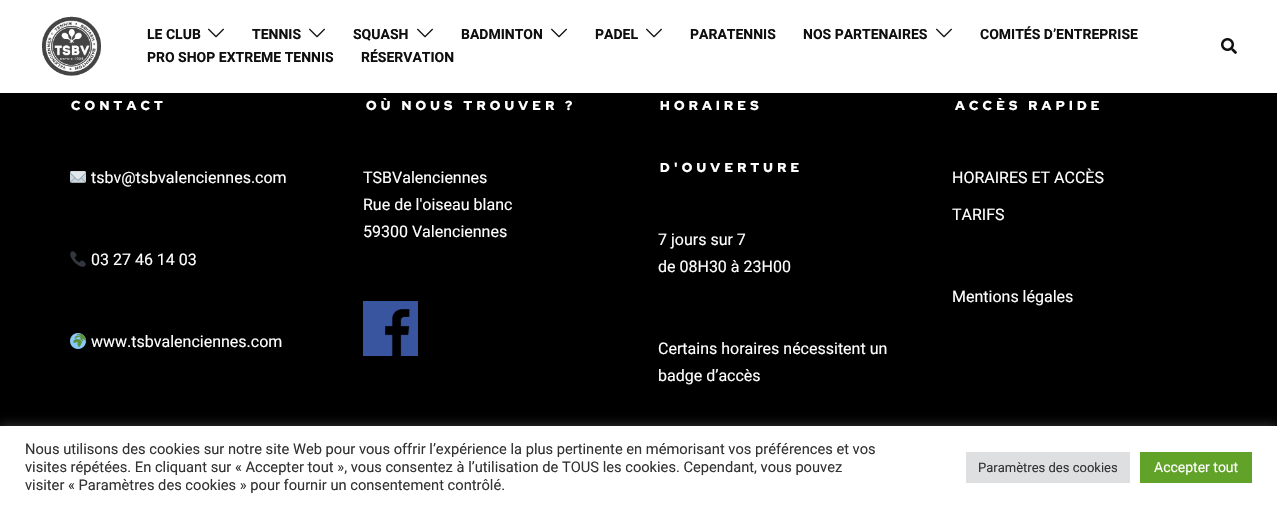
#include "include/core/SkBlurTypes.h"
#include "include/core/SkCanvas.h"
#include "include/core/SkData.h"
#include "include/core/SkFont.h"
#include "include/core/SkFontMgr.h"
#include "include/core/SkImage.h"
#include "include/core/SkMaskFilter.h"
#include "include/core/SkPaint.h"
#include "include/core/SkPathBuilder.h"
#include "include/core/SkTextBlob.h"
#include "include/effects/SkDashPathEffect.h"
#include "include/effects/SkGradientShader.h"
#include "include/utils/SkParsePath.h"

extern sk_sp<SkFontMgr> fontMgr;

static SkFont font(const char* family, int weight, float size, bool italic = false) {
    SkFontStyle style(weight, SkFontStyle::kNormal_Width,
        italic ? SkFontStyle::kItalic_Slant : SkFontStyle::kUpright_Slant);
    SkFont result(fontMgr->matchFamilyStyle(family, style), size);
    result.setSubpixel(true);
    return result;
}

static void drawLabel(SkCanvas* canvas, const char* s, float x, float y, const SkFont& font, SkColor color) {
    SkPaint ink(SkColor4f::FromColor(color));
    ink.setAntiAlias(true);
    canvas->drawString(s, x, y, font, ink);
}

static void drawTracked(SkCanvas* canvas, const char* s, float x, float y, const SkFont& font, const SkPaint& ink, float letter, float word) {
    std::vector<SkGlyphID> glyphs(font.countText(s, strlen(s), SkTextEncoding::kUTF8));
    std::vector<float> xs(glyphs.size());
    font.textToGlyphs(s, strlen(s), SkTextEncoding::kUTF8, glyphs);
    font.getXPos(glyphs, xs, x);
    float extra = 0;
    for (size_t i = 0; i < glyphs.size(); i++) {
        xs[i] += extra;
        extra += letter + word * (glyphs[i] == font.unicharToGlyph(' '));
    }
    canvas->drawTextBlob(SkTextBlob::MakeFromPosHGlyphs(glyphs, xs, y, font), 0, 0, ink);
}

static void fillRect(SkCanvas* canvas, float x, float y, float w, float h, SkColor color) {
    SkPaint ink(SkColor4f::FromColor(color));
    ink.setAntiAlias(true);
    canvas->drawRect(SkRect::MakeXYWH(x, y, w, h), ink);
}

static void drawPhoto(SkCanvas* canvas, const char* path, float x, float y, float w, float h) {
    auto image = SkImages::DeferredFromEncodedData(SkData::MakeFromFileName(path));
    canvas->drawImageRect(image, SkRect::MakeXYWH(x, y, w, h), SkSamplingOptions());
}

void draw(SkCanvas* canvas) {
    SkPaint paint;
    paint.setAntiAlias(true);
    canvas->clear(0xFF000000);
    fillRect(canvas, 0, 0, 1277, 93, 0xFFFFFFFF);
    drawPhoto(canvas, "assets/img1.png", 42, 16, 59, 60);
    SkFont font1 = font("Roboto", 700, 14);
    drawLabel(canvas, "LE CLUB", 147, 39, font1, 0xFF0F0F0F);
    drawPhoto(canvas, "assets/img2.png", 208, 28, 16, 10);
    drawLabel(canvas, "TENNIS", 252, 39, font1, 0xFF0F0F0F);
    drawPhoto(canvas, "assets/img2.png", 309, 28, 16, 10);
    drawLabel(canvas, "SQUASH", 353, 39, font1, 0xFF0F0F0F);
    drawPhoto(canvas, "assets/img2.png", 417, 28, 16, 10);
    drawLabel(canvas, "BADMINTON", 461, 39, font1, 0xFF0F0F0F);
    drawPhoto(canvas, "assets/img2.png", 551, 28, 16, 10);
    drawLabel(canvas, "PADEL", 595, 39, font1, 0xFF0F0F0F);
    drawPhoto(canvas, "assets/img2.png", 646, 28, 16, 10);
    drawLabel(canvas, "PARATENNIS", 690, 39, font1, 0xFF0F0F0F);
    drawLabel(canvas, "NOS PARTENAIRES", 803, 39, font1, 0xFF0F0F0F);
    drawPhoto(canvas, "assets/img2.png", 936, 28, 16, 10);
    drawLabel(canvas, "COMITÉS D’ENTREPRISE", 980, 39, font1, 0xFF0F0F0F);
    drawLabel(canvas, "PRO SHOP EXTREME TENNIS", 147, 62, font1, 0xFF0F0F0F);
    drawLabel(canvas, "RÉSERVATION", 361, 62, font1, 0xFF0F0F0F);
    drawPhoto(canvas, "assets/img3.png", 1221, 38, 16, 16);
    SkFont font2 = font("Red Hat Display", 900, 13);
    paint.setColor(0xFFFFFFFF);
    drawTracked(canvas, "CONTACT", 71, 110, font2, paint, 4.25f, 0);
    drawPhoto(canvas, "assets/img4.png", 70, 171, 16, 12);
    SkFont font3 = font("Roboto", 400, 16);
    drawLabel(canvas, "tsbv@tsbvalenciennes.com", 91, 183, font3, 0xFFFFFFFF);
    drawPhoto(canvas, "assets/img5.png", 70, 251, 16, 16);
    drawLabel(canvas, "03 27 46 14 03", 91, 265, font3, 0xFFFFFFFF);
    drawPhoto(canvas, "assets/img6.png", 70, 333, 16, 16);
    drawLabel(canvas, "www.tsbvalenciennes.com", 91, 347, font3, 0xFFFFFFFF);
    drawTracked(canvas, "OÙ NOUS TROUVER ?", 366, 110, font2, paint, 4.25f, 0);
    drawLabel(canvas, "TSBValenciennes", 363, 183, font3, 0xFFFFFFFF);
    drawLabel(canvas, "Rue de l'oiseau blanc", 363, 210, font3, 0xFFFFFFFF);
    drawLabel(canvas, "59300 Valenciennes", 363, 237, font3, 0xFFFFFFFF);
    drawPhoto(canvas, "assets/img7.png", 363, 301, 55, 55);
    drawTracked(canvas, "HORAIRES", 660, 110, font2, paint, 4.25f, 0);
    drawTracked(canvas, "D'OUVERTURE", 660, 172, font2, paint, 4.25f, 0);
    drawLabel(canvas, "7 jours sur 7", 658, 245, font3, 0xFFFFFFFF);
    drawLabel(canvas, "de 08H30 à 23H00", 658, 272, font3, 0xFFFFFFFF);
    drawLabel(canvas, "Certains horaires nécessitent un", 658, 354, font3, 0xFFFFFFFF);
    drawLabel(canvas, "badge d’accès", 658, 381, font3, 0xFFFFFFFF);
    drawTracked(canvas, "ACCÈS RAPIDE", 955, 110, font2, paint, 4.25f, 0);
    drawLabel(canvas, "HORAIRES ET ACCÈS", 952, 183, font3, 0xFFFFFFFF);
    drawLabel(canvas, "TARIFS", 952, 220, font3, 0xFFFFFFFF);
    drawLabel(canvas, "Mentions légales", 952, 302, font3, 0xFFFFFFFF);
    paint.setColor(0x4DACABAB);
    paint.setMaskFilter(SkMaskFilter::MakeBlur(kNormal_SkBlurStyle, 5));
    canvas->drawRect(SkRect::MakeXYWH(0, 425, 1277, 82), paint);
    paint.setMaskFilter(nullptr);
    fillRect(canvas, 0, 426, 1277, 82, 0xFFFFFFFF);
    SkFont font4 = font("Roboto", 400, 14.67f);
    drawLabel(canvas, "Nous utilisons des cookies sur notre site Web pour vous offrir l’expérience la plus pertinente en mémorisant vos préférences et vos", 25, 454, font4, 0xFF333333);
    drawLabel(canvas, "visites répétées. En cliquant sur « Accepter tout », vous consentez à l’utilisation de TOUS les cookies. Cependant, vous pouvez", 25, 472, font4, 0xFF333333);
    drawLabel(canvas, "visiter « Paramètres des cookies » pour fournir un consentement contrôlé.", 25, 490, font4, 0xFF333333);
    fillRect(canvas, 966, 452, 164, 31, 0xFFDEDFE0);
    SkFont font5 = font("Roboto", 400, 13);
    drawLabel(canvas, "Paramètres des cookies", 978, 472, font5, 0xFF333333);
    fillRect(canvas, 1140, 452, 112, 31, 0xFF61A229);
    SkFont font6 = font("Roboto", 400, 14);
    drawLabel(canvas, "Accepter tout", 1154, 472, font6, 0xFFFFFFFF);
}
